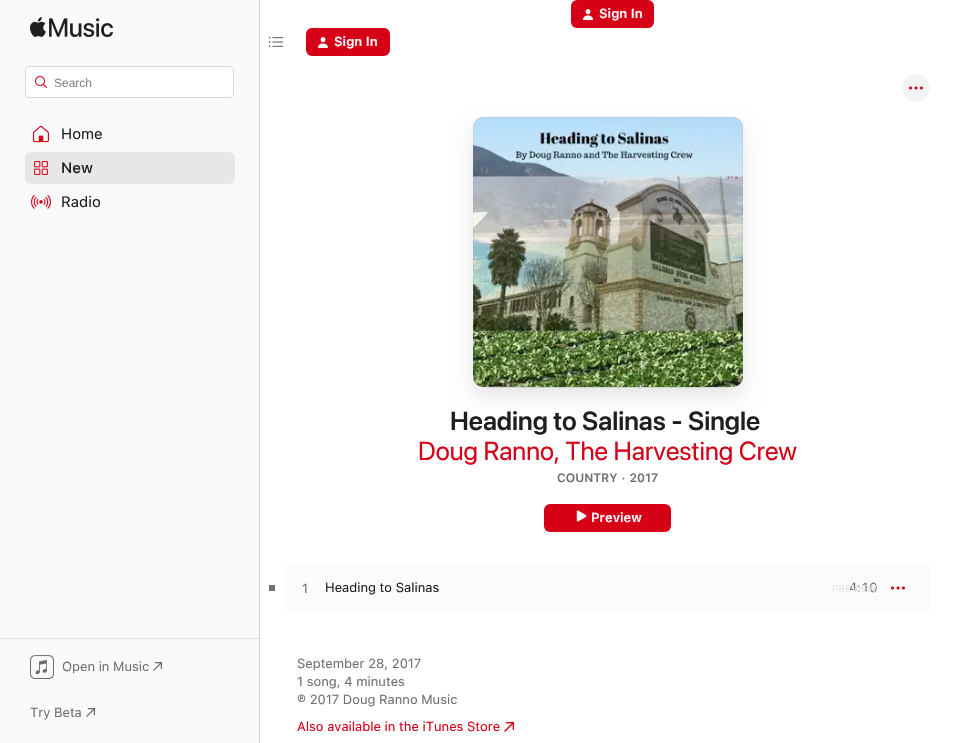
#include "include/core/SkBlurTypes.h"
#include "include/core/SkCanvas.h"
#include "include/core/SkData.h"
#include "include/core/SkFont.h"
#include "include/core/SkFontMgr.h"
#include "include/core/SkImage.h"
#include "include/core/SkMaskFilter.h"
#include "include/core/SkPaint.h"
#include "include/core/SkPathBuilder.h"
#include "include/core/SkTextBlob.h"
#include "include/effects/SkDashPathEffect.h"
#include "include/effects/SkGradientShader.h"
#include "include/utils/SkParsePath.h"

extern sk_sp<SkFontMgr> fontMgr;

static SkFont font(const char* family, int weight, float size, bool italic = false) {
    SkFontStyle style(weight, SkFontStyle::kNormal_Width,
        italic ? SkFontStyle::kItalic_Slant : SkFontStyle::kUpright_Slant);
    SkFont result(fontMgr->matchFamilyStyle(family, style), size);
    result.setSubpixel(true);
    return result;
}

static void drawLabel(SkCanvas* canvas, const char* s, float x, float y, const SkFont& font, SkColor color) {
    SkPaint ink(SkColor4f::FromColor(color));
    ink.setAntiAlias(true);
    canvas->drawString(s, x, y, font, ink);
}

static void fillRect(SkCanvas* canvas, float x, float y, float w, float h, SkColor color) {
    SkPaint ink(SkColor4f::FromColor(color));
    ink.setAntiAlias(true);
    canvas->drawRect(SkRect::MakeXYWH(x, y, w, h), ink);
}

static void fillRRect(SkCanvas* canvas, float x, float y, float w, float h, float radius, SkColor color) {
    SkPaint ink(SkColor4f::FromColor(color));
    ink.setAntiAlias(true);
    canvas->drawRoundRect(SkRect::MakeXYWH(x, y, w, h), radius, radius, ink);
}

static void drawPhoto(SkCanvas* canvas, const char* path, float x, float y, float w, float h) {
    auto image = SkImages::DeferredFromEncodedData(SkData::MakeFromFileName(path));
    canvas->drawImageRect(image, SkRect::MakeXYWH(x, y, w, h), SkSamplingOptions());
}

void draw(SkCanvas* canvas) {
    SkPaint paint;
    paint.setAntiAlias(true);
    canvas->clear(0xFFFFFFFF);
    fillRRect(canvas, 571, 0, 83, 28, 6, 0xFFD60017);
    drawPhoto(canvas, "assets/img1.png", 583, 9, 10, 11);
    SkFont font1 = font("SF", 600, 13);
    drawLabel(canvas, "Sign In", 599, 18, font1, 0xFFFFFFFF);
    drawPhoto(canvas, "assets/img2.png", 268, 36, 16, 12);
    fillRRect(canvas, 306, 28, 84, 28, 6, 0xFFD60017);
    drawPhoto(canvas, "assets/img1.png", 318, 37, 10, 11);
    drawLabel(canvas, "Sign In", 334, 46, font1, 0xFFFFFFFF);
    fillRect(canvas, 0, 0, 259, 743, 0xFFFAFAFA);
    fillRect(canvas, 0, 638, 260, 1, 0xFFE1E1E1);
    fillRect(canvas, 259, 0, 1, 743, 0xFFD5D5D5);
    fillRect(canvas, 259, 638, 1, 1, 0xFFC0C0C0);
    drawPhoto(canvas, "assets/img3.png", 30, 17, 83, 20);
    paint.setColor(0xFFFFFFFF);
    canvas->drawRoundRect(SkRect::MakeXYWH(25.5f, 66.5f, 208, 31), 3.5f, 3.5f, paint);
    paint.setStroke(true);
    paint.setStrokeWidth(1);
    paint.setColor(0xFFD9D9D9);
    canvas->drawRoundRect(SkRect::MakeXYWH(25.5f, 66.5f, 208, 31), 3.5f, 3.5f, paint);
    drawPhoto(canvas, "assets/img4.png", 35, 76, 12, 12);
    SkFont font2 = font("Liberation Sans", 400, 12);
    drawLabel(canvas, "Search", 54, 87, font2, 0xFF858585);
    drawPhoto(canvas, "assets/img5.png", 33, 125, 16, 18);
    SkFont font3 = font("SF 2", 400, 15);
    drawLabel(canvas, "Home", 61, 139, font3, 0xFF1F1F1F);
    fillRRect(canvas, 25, 152, 210, 32, 6, 0xFFE7E7E8);
    drawPhoto(canvas, "assets/img6.png", 34, 161, 14, 14);
    SkFont font4 = font("SF", 500, 15);
    drawLabel(canvas, "New", 61, 173, font4, 0xFF1F1F1F);
    drawPhoto(canvas, "assets/img7.png", 31, 195, 20, 14);
    drawLabel(canvas, "Radio", 61, 207, font3, 0xFF1F1F1F);
    drawPhoto(canvas, "assets/img8.png", 30, 655, 24, 24);
    SkFont font5 = font("SF 2", 400, 13);
    drawLabel(canvas, "Open in Music", 62, 671, font5, 0xFF707070);
    drawPhoto(canvas, "assets/img9.png", 153, 662, 9, 9);
    drawLabel(canvas, "Try Beta", 30, 717, font5, 0xFF707070);
    drawPhoto(canvas, "assets/img9.png", 86, 708, 9, 9);
    drawPhoto(canvas, "assets/img10.png", 902, 74, 28, 28);
    paint.setStroke(false);
    paint.setColor(0x1A000000);
    paint.setMaskFilter(SkMaskFilter::MakeBlur(kNormal_SkBlurStyle, 10));
    canvas->drawRoundRect(SkRect::MakeXYWH(473, 127, 270, 270), 10, 10, paint);
    paint.setMaskFilter(nullptr);
    drawPhoto(canvas, "assets/img11.png", 473, 117, 270, 270);
    paint.setStroke(true);
    paint.setColor(0x1A808080);
    canvas->drawRoundRect(SkRect::MakeXYWH(473.5f, 117.5f, 269, 269), 9.5f, 9.5f, paint);
    drawPhoto(canvas, "assets/img12.png", 487, 387, 241, 1);
    SkFont font6 = font("SF 2", 600, 26);
    drawLabel(canvas, "Heading to Salinas - Single", 450, 430, font6, 0xFF1F1F1F);
    SkFont font7 = font("SF", 400, 26);
    drawLabel(canvas, "Doug Ranno, The Harvesting Crew", 418, 460, font7, 0xFFD60017);
    SkFont font8 = font("SF", 600, 12);
    drawLabel(canvas, "COUNTRY · 2017", 557, 482, font8, 0xFF707070);
    fillRRect(canvas, 544, 504, 127, 28, 6, 0xFFD60017);
    drawPhoto(canvas, "assets/img13.png", 576, 510, 11, 12);
    drawLabel(canvas, "Preview", 591, 522, font1, 0xFFFFFFFF);
    fillRect(canvas, 285, 565, 645, 46, 0xFFFBFBFB);
    fillRect(canvas, 269, 585, 6, 6, 0xFF707070);
    drawLabel(canvas, "1", 302, 593, font5, 0xFF707070);
    drawLabel(canvas, "Heading to Salinas", 325, 592, font5, 0xFF1F1F1F);
    SkFont font9 = font("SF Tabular", 400, 13);
    drawLabel(canvas, "4:10", 849, 592, font9, 0xFF707070);
    SkFont font10 = font("SF", 500, 10);
    drawLabel(canvas, "PREVIEW", 832, 592, font10, 0xFFE7E7E7);
    drawPhoto(canvas, "assets/img14.png", 891, 586, 14, 4);
    drawLabel(canvas, "September 28, 2017", 297, 668, font5, 0xFF707070);
    drawLabel(canvas, "1 song, 4 minutes", 297, 686, font5, 0xFF707070);
    drawLabel(canvas, "℗ 2017 Doug Ranno Music", 297, 704, font5, 0xFF707070);
    drawLabel(canvas, "Also available in the iTunes Store", 297, 731, font5, 0xFFD60017);
    drawPhoto(canvas, "assets/img15.png", 504, 722, 10, 10);
}
